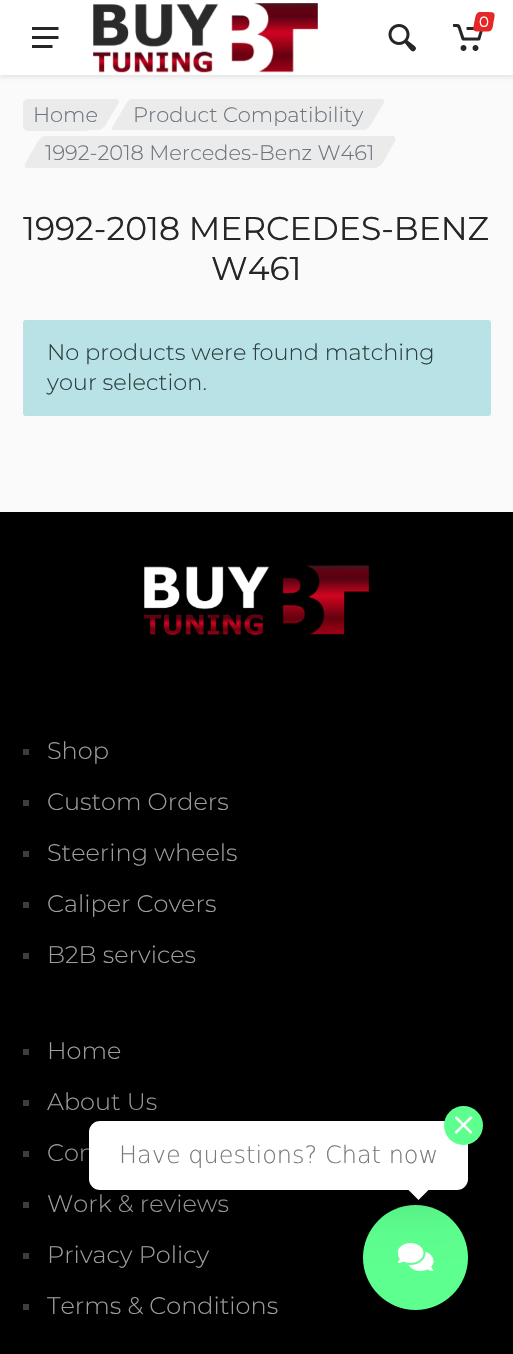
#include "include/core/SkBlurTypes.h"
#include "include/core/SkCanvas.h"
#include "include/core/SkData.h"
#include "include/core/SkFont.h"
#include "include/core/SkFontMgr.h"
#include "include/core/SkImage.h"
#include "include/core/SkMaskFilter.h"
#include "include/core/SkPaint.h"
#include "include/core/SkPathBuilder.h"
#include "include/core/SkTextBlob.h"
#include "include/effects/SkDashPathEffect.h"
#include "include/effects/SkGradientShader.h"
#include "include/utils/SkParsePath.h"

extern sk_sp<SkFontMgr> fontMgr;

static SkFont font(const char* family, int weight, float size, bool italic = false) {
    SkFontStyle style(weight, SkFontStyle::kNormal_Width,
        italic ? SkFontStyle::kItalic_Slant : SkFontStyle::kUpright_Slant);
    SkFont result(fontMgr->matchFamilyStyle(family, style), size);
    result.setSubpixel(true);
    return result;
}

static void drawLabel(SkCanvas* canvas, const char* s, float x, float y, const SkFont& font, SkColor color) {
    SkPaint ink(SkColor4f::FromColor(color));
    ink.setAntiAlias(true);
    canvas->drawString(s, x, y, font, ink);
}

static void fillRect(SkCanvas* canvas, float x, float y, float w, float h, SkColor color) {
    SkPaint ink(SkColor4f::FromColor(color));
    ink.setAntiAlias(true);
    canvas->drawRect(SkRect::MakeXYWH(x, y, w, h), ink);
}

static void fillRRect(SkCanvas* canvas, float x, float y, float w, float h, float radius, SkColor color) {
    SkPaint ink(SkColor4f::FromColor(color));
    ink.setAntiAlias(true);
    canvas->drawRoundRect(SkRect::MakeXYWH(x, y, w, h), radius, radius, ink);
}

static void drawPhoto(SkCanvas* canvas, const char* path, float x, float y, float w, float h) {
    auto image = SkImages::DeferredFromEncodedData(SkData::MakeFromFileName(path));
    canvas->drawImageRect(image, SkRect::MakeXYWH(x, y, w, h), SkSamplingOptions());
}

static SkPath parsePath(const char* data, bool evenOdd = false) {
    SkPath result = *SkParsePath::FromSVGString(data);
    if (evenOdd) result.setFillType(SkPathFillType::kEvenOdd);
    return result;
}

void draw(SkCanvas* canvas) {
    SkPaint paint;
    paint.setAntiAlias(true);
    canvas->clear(0xFFFAFAFA);
    paint.setColor(0x17000000);
    paint.setMaskFilter(SkMaskFilter::MakeBlur(kNormal_SkBlurStyle, 2));
    canvas->drawRect(SkRect::MakeXYWH(0, 2, 513, 75), paint);
    paint.setMaskFilter(nullptr);
    fillRect(canvas, 0, 0, 513, 75, 0xFFFFFFFF);
    drawPhoto(canvas, "assets/img1.png", 93, 3, 225, 70);
    drawPhoto(canvas, "assets/img2.png", 453, 24, 30, 27);
    paint.setColor(0xFFE52727);
    canvas->drawPath(parsePath("M480 12C482.5 12 491 11.5 493 12.5C496 14 494 19.5 493.5 22C493 25.5 493 31.5 488 31.5H478.5C472 31.5 473 29 474 24C475 20 475 12 480 12Z"), paint);
    SkFont font1 = font("Montserrat", 400, 15);
    drawLabel(canvas, "0", 479, 27, font1, 0xFFFFFFFF);
    drawPhoto(canvas, "assets/img3.png", 388, 24, 28, 28);
    drawPhoto(canvas, "assets/img4.png", 32, 27, 27, 21);
    paint.setColor(0xFFEBEBEB);
    canvas->drawPath(parsePath("M45 99H116C119 99 120 101 118 104L105 126C104 128 100 130 98 130H27C25 130 24 128 25 126L38 104C40 101 43 99 45 99Z"), paint);
    fillRRect(canvas, 23, 99, 67, 32, 5, 0xFFEBEBEB);
    SkFont font2 = font("Montserrat", 300, 21);
    drawLabel(canvas, "Home", 33, 122, font2, 0xFF6C757D);
    canvas->drawPath(parsePath("M133 99H381C384 99 385 101 383 104L370 126C369 128 366 130 363 130H115C112 130 111 128 113 126L126 104C127 101 130 99 133 99Z"), paint);
    drawLabel(canvas, "Product Compatibility", 133, 122, font2, 0xFF6C757D);
    canvas->drawPath(parsePath("M45 136H393C395 136 396 139 395 141L382 164C380 166 377 168 374 168H27C25 168 24 166 25 164L38 141C40 139 43 136 45 136Z"), paint);
    drawLabel(canvas, "1992-2018 Mercedes-Benz W461", 45, 160, font2, 0xFF6C757D);
    SkFont font3 = font("Montserrat", 400, 33);
    drawLabel(canvas, "1992-2018 MERCEDES-BENZ", 23, 240, font3, 0xFF262626);
    drawLabel(canvas, "W461", 211, 280, font3, 0xFF262626);
    fillRRect(canvas, 23, 320, 468, 96, 3, 0xFFB8E2E5);
    SkFont font4 = font("Montserrat", 300, 22.5f);
    drawLabel(canvas, "No products were found matching", 47, 360, font4, 0xFF2D3E40);
    drawLabel(canvas, "your selection.", 47, 390, font4, 0xFF2D3E40);
    fillRect(canvas, 0, 512, 513, 842, 0xFF000000);
    drawPhoto(canvas, "assets/img5.png", 144, 565, 225, 70);
    fillRect(canvas, 23, 749, 6, 6, 0xFF3D3D3D);
    SkFont font5 = font("Montserrat", 300, 24);
    drawLabel(canvas, "Shop", 47, 759, font5, 0xFF9E9E9E);
    fillRect(canvas, 23, 800, 6, 6, 0xFF3D3D3D);
    drawLabel(canvas, "Custom Orders", 47, 810, font5, 0xFF9E9E9E);
    fillRect(canvas, 23, 851, 6, 6, 0xFF3D3D3D);
    drawLabel(canvas, "Steering wheels", 47, 861, font5, 0xFF9E9E9E);
    fillRect(canvas, 23, 902, 6, 6, 0xFF3D3D3D);
    drawLabel(canvas, "Caliper Covers", 47, 912, font5, 0xFF9E9E9E);
    fillRect(canvas, 23, 953, 6, 6, 0xFF3D3D3D);
    drawLabel(canvas, "B2B services", 47, 963, font5, 0xFF9E9E9E);
    fillRect(canvas, 23, 1049, 6, 6, 0xFF3D3D3D);
    drawLabel(canvas, "Home", 47, 1059, font5, 0xFF9E9E9E);
    fillRect(canvas, 23, 1100, 6, 6, 0xFF3D3D3D);
    drawLabel(canvas, "About Us", 47, 1110, font5, 0xFF9E9E9E);
    fillRect(canvas, 23, 1151, 6, 6, 0xFF3D3D3D);
    drawLabel(canvas, "Con", 47, 1161, font5, 0xFF9E9E9E);
    fillRect(canvas, 23, 1202, 6, 6, 0xFF3D3D3D);
    drawLabel(canvas, "Work & reviews", 47, 1212, font5, 0xFF9E9E9E);
    fillRect(canvas, 23, 1253, 6, 6, 0xFF3D3D3D);
    drawLabel(canvas, "Privacy Policy", 47, 1263, font5, 0xFF9E9E9E);
    fillRect(canvas, 23, 1304, 6, 6, 0xFF3D3D3D);
    drawLabel(canvas, "Terms & Conditions", 47, 1314, font5, 0xFF9E9E9E);
    paint.setColor(0xFF5DFF8F);
    canvas->drawCircle(415.5f, 1257.5f, 52.5f, paint);
    drawPhoto(canvas, "assets/img7.png", 398, 1243, 36, 28);
    paint.setColor(0x33000000);
    paint.setMaskFilter(SkMaskFilter::MakeBlur(kNormal_SkBlurStyle, 30));
    canvas->drawRoundRect(SkRect::MakeXYWH(89, 1121, 379, 69), 11, 11, paint);
    paint.setMaskFilter(nullptr);
    fillRRect(canvas, 89, 1121, 379, 69, 11, 0xFFFFFFFF);
    paint.setColor(0xFF5DFF8F);
    canvas->drawCircle(463.5f, 1125.5f, 19.5f, paint);
    drawPhoto(canvas, "assets/img6.png", 455, 1116, 18, 18);
    SkFont font6 = font("DejaVu Sans", 200, 24);
    drawLabel(canvas, "Have questions? Chat now", 119, 1163, font6, 0xFF787878);
    paint.setColor(0xFFFFFFFF);
    canvas->drawPath(parsePath("M406.5 1188H430.5L418.5 1200Z"), paint);
}
